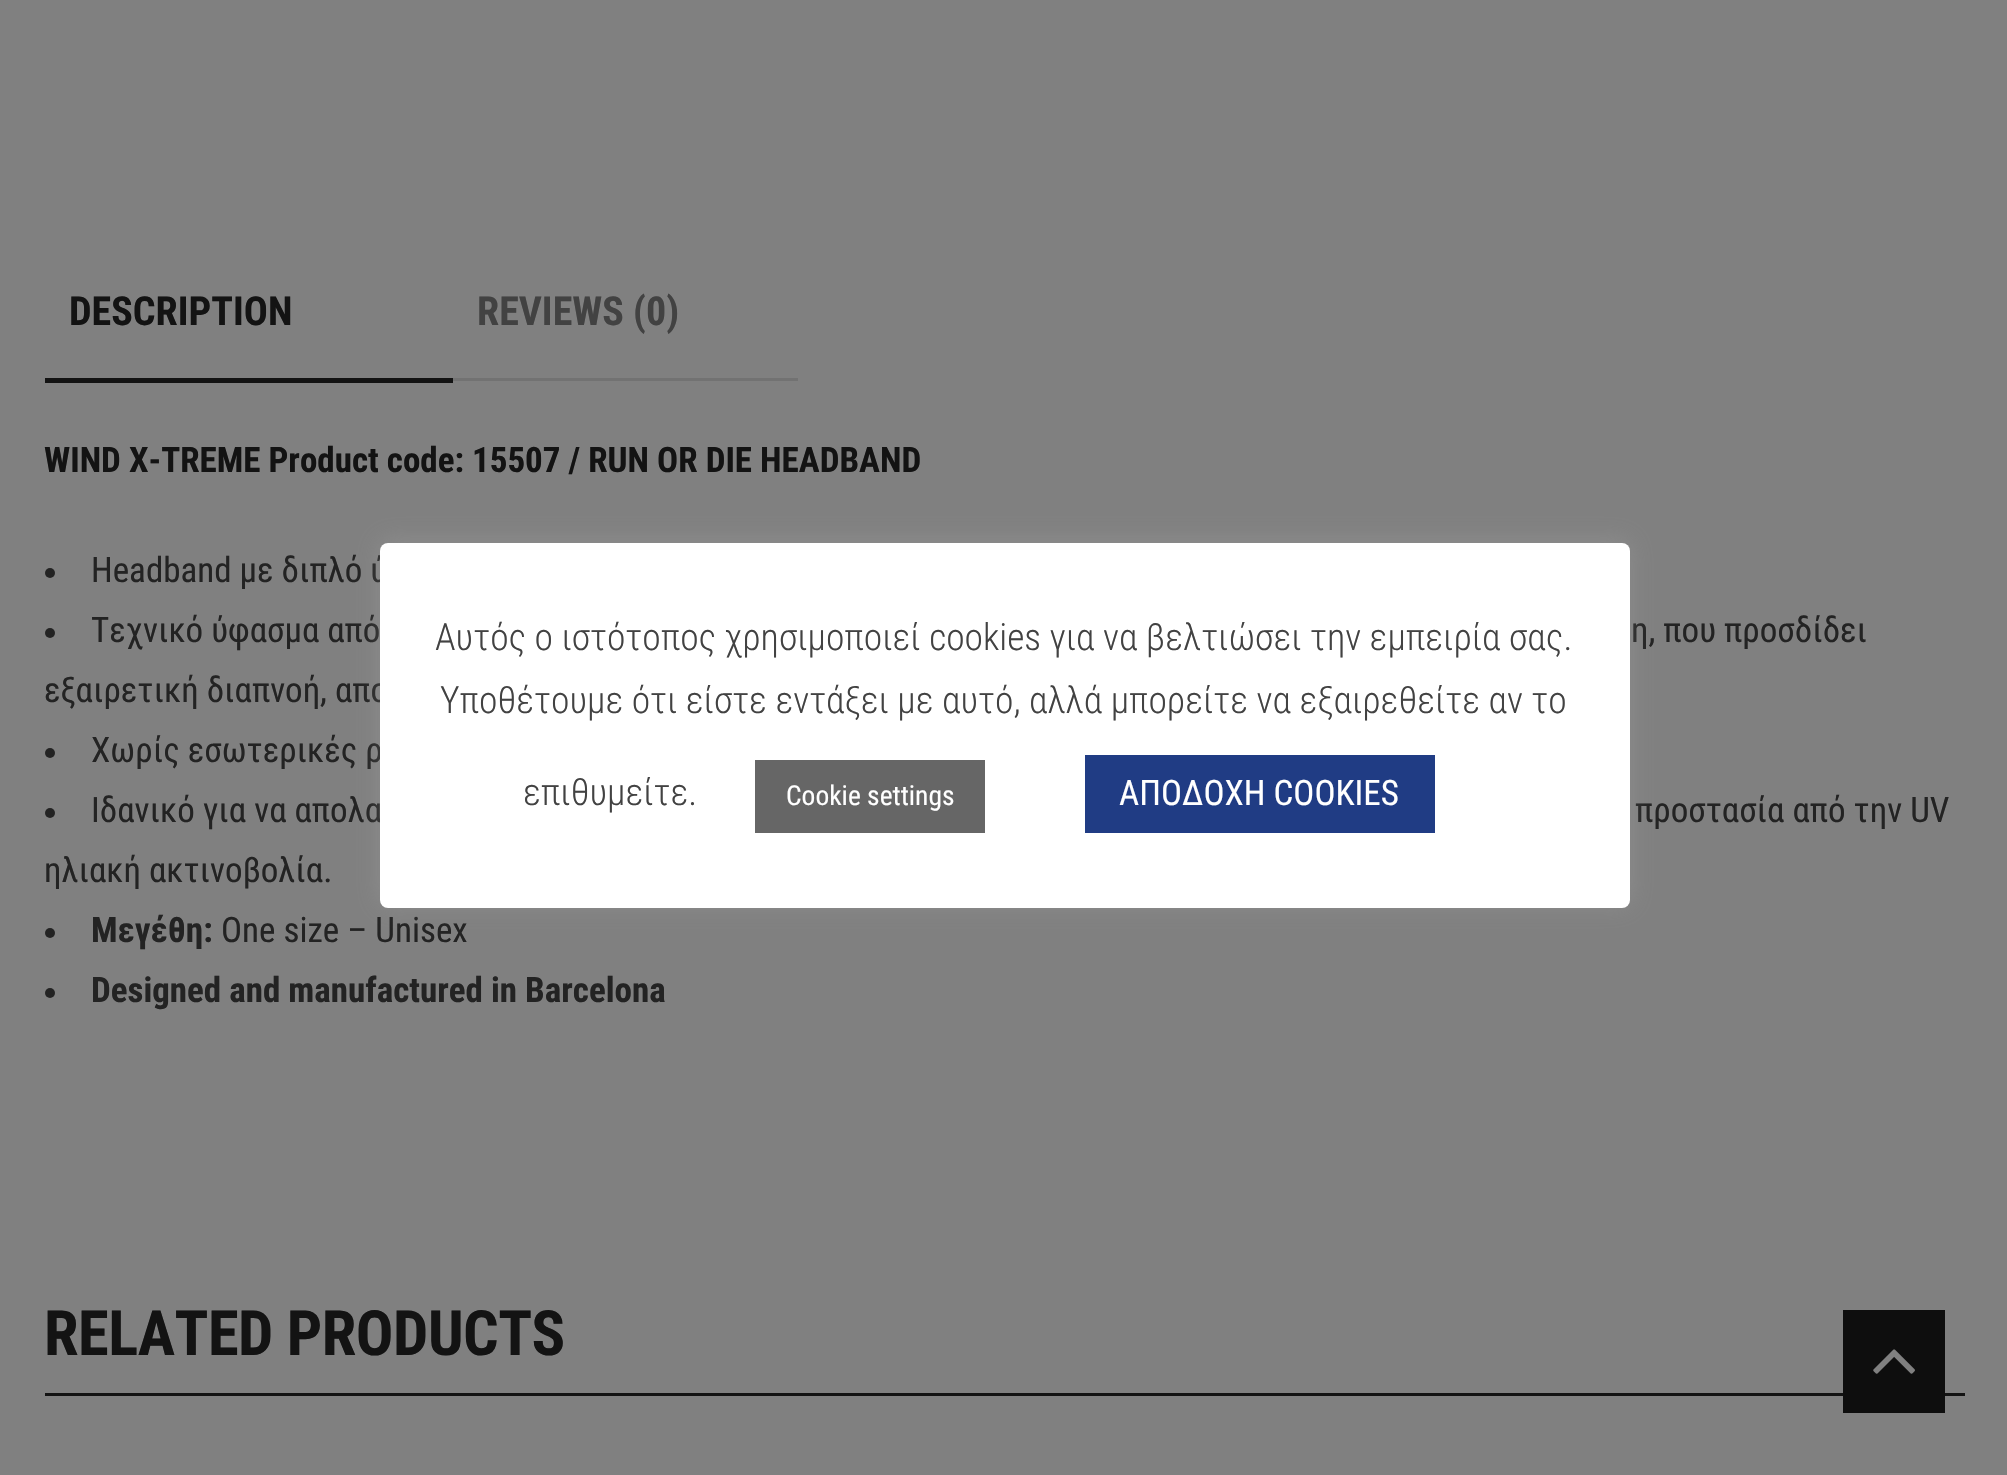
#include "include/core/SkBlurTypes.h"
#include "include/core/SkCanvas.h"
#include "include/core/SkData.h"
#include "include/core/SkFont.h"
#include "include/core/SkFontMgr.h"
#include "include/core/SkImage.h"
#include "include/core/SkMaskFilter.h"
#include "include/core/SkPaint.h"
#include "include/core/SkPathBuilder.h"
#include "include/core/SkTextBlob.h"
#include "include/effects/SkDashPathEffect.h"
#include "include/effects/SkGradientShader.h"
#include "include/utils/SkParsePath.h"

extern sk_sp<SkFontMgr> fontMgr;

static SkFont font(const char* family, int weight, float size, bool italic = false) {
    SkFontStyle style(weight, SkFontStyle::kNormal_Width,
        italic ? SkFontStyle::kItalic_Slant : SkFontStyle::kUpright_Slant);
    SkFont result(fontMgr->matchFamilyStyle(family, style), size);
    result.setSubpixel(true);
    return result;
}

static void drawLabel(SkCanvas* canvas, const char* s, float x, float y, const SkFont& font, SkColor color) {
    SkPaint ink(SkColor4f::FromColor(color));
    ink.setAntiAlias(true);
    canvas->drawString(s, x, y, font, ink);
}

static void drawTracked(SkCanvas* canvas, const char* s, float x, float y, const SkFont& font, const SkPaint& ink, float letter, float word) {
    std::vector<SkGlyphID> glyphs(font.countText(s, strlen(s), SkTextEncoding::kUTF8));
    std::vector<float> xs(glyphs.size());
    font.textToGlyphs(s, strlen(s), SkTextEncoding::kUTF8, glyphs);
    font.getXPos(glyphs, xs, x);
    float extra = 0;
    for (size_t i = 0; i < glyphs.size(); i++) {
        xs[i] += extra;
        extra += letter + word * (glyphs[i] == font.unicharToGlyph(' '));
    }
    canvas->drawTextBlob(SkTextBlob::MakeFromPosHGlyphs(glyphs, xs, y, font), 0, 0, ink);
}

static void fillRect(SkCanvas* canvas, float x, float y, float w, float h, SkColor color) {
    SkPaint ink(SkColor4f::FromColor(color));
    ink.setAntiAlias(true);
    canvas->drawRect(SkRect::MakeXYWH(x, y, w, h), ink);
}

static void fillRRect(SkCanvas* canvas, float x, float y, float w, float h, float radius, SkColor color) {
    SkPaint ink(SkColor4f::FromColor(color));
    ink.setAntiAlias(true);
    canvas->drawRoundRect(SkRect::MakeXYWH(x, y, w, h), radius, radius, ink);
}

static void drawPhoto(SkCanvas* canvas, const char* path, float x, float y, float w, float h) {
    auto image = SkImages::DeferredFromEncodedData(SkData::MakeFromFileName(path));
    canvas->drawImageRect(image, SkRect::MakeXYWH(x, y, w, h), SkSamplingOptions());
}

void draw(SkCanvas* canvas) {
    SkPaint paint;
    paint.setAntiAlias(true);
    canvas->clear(0xFF808080);
    fillRect(canvas, 45, 378, 408, 5, 0xFF131313);
    SkFont font1 = font("Roboto Condensed", 700, 40);
    drawLabel(canvas, "DESCRIPTION", 69, 325, font1, 0xFF131313);
    fillRect(canvas, 453, 378, 345, 3, 0xFF727272);
    drawLabel(canvas, "REVIEWS (0)", 477, 325, font1, 0xFF424242);
    SkFont font2 = font("Roboto Condensed", 700, 35);
    drawLabel(canvas, "WIND X-TREME Product code: 15507 / RUN OR DIE HEADBAND", 44, 472, font2, 0xFF131313);
    paint.setColor(0xFF232323);
    canvas->drawCircle(50, 573, 5, paint);
    SkFont font3 = font("Roboto Condensed", 400, 35);
    drawLabel(canvas, "Headband με διπλό ύ", 91, 582, font3, 0xFF232323);
    canvas->drawCircle(50, 633, 5, paint);
    drawLabel(canvas, "Τεχνικό ύφασμα από", 91, 642, font3, 0xFF232323);
    drawLabel(canvas, "η, που προσδίδει", 1631, 642, font3, 0xFF232323);
    drawLabel(canvas, "εξαιρετική διαπνοή, απο", 44, 702, font3, 0xFF232323);
    canvas->drawCircle(50, 753, 5, paint);
    drawLabel(canvas, "Χωρίς εσωτερικές ρ", 91, 762, font3, 0xFF232323);
    canvas->drawCircle(50, 813, 5, paint);
    drawLabel(canvas, "Ιδανικό για να απολα", 91, 822, font3, 0xFF232323);
    drawLabel(canvas, "προστασία από την UV", 1635, 822, font3, 0xFF232323);
    drawLabel(canvas, "ηλιακή ακτινοβολία.", 44, 882, font3, 0xFF232323);
    canvas->drawCircle(50, 933, 5, paint);
    drawLabel(canvas, "Μεγέθη:", 91, 942, font2, 0xFF232323);
    drawLabel(canvas, "One size – Unisex", 221, 942, font3, 0xFF232323);
    canvas->drawCircle(50, 993, 5, paint);
    drawLabel(canvas, "Designed and manufactured in Barcelona", 91, 1002, font2, 0xFF232323);
    SkFont font4 = font("Roboto Condensed", 700, 62.5f);
    paint.setColor(0xFF131313);
    drawTracked(canvas, "RELATED PRODUCTS", 44, 1355, font4, paint, -0.5f, 0);
    fillRect(canvas, 45, 1393, 1920, 3, 0xFF131313);
    fillRect(canvas, 1843, 1310, 102, 103, 0xFF0E0E0E);
    drawPhoto(canvas, "assets/img1.png", 1873, 1349, 42, 25);
    paint.setColor(0x4DACABAB);
    paint.setMaskFilter(SkMaskFilter::MakeBlur(kNormal_SkBlurStyle, 12.5f));
    canvas->drawRoundRect(SkRect::MakeXYWH(380, 540, 1250, 365), 8, 8, paint);
    paint.setMaskFilter(nullptr);
    fillRRect(canvas, 380, 543, 1250, 365, 8, 0xFFFFFFFF);
    SkFont font5 = font("Roboto Condensed", 300, 37.5f);
    drawLabel(canvas, "Αυτός ο ιστότοπος χρησιμοποιεί cookies για να βελτιώσει την εμπειρία σας.", 435, 650, font5, 0xFF424242);
    drawLabel(canvas, "Υποθέτουμε ότι είστε εντάξει με αυτό, αλλά μπορείτε να εξαιρεθείτε αν το", 440, 713, font5, 0xFF424242);
    drawLabel(canvas, "επιθυμείτε.", 523, 805, font5, 0xFF424242);
    fillRect(canvas, 755, 760, 230, 73, 0xFF666666);
    SkFont font6 = font("Roboto Condensed", 400, 27.5f);
    drawLabel(canvas, "Cookie settings", 786, 805, font6, 0xFFFFFFFF);
    fillRect(canvas, 1085, 755, 350, 78, 0xFF203C84);
    drawLabel(canvas, "ΑΠΟΔΟΧΗ COOKIES", 1119, 805, font3, 0xFFFFFFFF);
}
